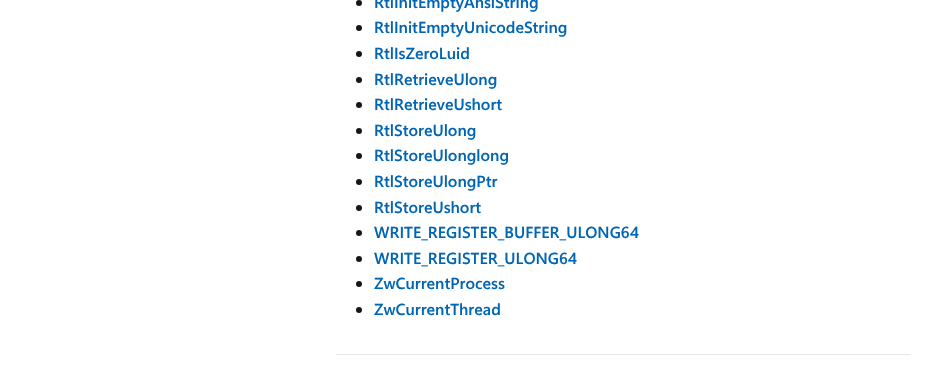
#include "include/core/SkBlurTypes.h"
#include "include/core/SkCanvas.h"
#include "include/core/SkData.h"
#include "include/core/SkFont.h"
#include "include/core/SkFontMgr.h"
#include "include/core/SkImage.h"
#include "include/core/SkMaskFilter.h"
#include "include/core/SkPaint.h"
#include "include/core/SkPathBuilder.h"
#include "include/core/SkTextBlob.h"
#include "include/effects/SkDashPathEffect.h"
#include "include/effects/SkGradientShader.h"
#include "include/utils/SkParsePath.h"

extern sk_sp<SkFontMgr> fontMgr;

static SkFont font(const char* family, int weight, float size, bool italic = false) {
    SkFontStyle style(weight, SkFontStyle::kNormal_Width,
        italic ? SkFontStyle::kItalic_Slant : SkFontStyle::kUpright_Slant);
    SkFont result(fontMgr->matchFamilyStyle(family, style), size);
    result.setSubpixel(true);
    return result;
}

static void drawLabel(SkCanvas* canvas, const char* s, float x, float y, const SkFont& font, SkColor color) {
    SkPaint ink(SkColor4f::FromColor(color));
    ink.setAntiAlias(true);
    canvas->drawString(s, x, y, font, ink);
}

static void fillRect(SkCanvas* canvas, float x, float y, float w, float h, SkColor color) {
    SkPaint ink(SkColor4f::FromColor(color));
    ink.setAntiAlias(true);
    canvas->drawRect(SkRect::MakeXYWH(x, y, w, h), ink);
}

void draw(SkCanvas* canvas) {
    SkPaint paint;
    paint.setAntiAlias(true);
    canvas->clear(0xFFFFFFFF);
    paint.setColor(0xFF161616);
    canvas->drawCircle(359, 3, 3, paint);
    SkFont font1 = font("Segoe UI", 600, 16);
    drawLabel(canvas, "RtlInitEmptyAnsiString", 374, 8, font1, 0xFF0065B3);
    canvas->drawCircle(359, 28, 3, paint);
    drawLabel(canvas, "RtlInitEmptyUnicodeString", 374, 33, font1, 0xFF0065B3);
    canvas->drawCircle(359, 54, 3, paint);
    drawLabel(canvas, "RtlIsZeroLuid", 374, 59, font1, 0xFF0065B3);
    canvas->drawCircle(359, 80, 3, paint);
    drawLabel(canvas, "RtlRetrieveUlong", 374, 85, font1, 0xFF0065B3);
    canvas->drawCircle(359, 105, 3, paint);
    drawLabel(canvas, "RtlRetrieveUshort", 374, 110, font1, 0xFF0065B3);
    canvas->drawCircle(359, 131, 3, paint);
    drawLabel(canvas, "RtlStoreUlong", 374, 136, font1, 0xFF0065B3);
    canvas->drawCircle(359, 156, 3, paint);
    drawLabel(canvas, "RtlStoreUlonglong", 374, 161, font1, 0xFF0065B3);
    canvas->drawCircle(359, 182, 3, paint);
    drawLabel(canvas, "RtlStoreUlongPtr", 374, 187, font1, 0xFF0065B3);
    canvas->drawCircle(359, 208, 3, paint);
    drawLabel(canvas, "RtlStoreUshort", 374, 213, font1, 0xFF0065B3);
    canvas->drawCircle(359, 233, 3, paint);
    drawLabel(canvas, "WRITE_REGISTER_BUFFER_ULONG64", 374, 238, font1, 0xFF0065B3);
    canvas->drawCircle(359, 259, 3, paint);
    drawLabel(canvas, "WRITE_REGISTER_ULONG64", 374, 264, font1, 0xFF0065B3);
    canvas->drawCircle(359, 284, 3, paint);
    drawLabel(canvas, "ZwCurrentProcess", 374, 289, font1, 0xFF0065B3);
    canvas->drawCircle(359, 310, 3, paint);
    drawLabel(canvas, "ZwCurrentThread", 374, 315, font1, 0xFF0065B3);
    fillRect(canvas, 336, 354, 575, 1, 0xFFE6E6E6);
}
